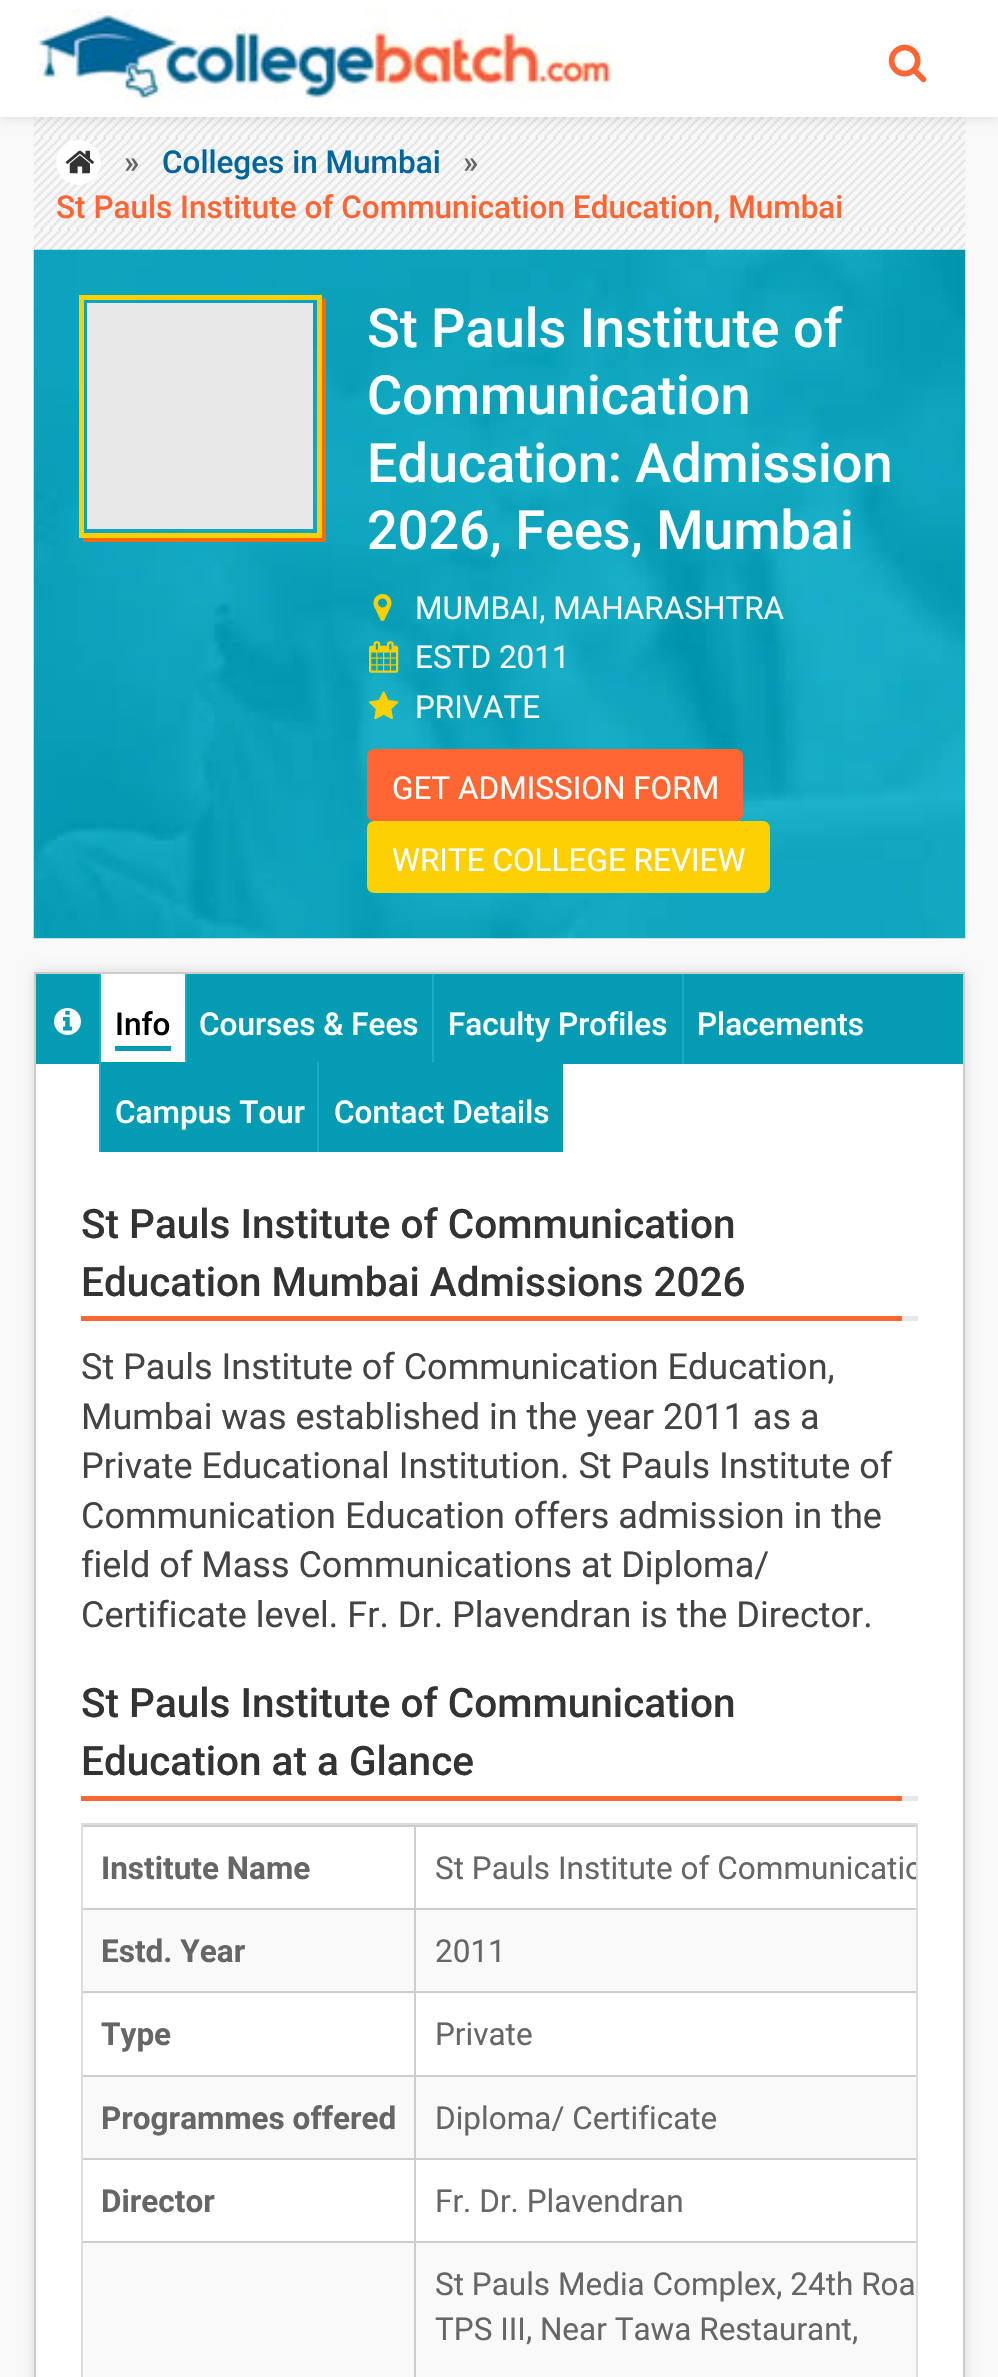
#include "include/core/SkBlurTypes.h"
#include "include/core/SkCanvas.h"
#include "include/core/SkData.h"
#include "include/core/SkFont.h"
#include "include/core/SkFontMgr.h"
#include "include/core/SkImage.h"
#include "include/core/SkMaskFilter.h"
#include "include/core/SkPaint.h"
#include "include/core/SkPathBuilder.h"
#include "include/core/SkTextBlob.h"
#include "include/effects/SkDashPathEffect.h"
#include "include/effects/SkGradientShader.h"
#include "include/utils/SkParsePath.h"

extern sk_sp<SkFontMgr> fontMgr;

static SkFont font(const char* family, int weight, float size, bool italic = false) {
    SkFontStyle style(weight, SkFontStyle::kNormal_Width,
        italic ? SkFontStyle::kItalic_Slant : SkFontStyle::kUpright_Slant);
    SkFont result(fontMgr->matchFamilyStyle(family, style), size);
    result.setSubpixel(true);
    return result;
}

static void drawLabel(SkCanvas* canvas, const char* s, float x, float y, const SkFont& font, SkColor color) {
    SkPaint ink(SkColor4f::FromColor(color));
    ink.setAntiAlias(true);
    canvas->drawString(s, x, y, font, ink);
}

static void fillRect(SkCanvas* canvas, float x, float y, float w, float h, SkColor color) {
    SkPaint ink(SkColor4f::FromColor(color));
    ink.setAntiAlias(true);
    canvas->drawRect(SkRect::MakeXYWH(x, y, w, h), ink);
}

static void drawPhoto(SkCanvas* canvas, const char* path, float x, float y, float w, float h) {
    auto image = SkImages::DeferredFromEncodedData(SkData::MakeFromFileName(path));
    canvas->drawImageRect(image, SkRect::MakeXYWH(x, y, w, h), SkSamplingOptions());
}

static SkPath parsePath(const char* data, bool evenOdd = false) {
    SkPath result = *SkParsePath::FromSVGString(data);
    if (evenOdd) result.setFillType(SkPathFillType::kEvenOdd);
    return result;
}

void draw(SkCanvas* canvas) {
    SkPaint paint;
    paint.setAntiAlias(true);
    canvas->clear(0xFFF9F9F9);
    drawPhoto(canvas, "assets/img3.png", 33, 117, 933, 133);
    paint.setColor(0x21000000);
    paint.setMaskFilter(SkMaskFilter::MakeBlur(kNormal_SkBlurStyle, 5.5f));
    canvas->drawRect(SkRect::MakeXYWH(0, 0, 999, 117), paint);
    paint.setMaskFilter(nullptr);
    fillRect(canvas, 0, 0, 998, 117, 0xFFFFFFFF);
    drawPhoto(canvas, "assets/img1.png", 36, 9, 578, 95);
    drawPhoto(canvas, "assets/img2.png", 888, 44, 39, 39);
    paint.setColor(0xFFFFFFFF);
    canvas->drawCircle(78.5f, 162.5f, 22.5f, paint);
    drawPhoto(canvas, "assets/img4.png", 65, 150, 29, 24);
    SkFont font1 = font("Roboto", 500, 31.5f);
    drawLabel(canvas, "»", 124, 173, font1, 0xFF666666);
    drawLabel(canvas, "Colleges in Mumbai", 162, 173, font1, 0xFF006599);
    drawLabel(canvas, "»", 463, 173, font1, 0xFF666666);
    drawLabel(canvas, "St Pauls Institute of Communication Education, Mumbai", 56, 218, font1, 0xFFFF6633);
    drawPhoto(canvas, "assets/img5.png", 33, 249, 933, 690);
    paint.setColor(0xF2FF6600);
    canvas->drawPath(parsePath("M83 538V542H326V299H322V538Z"), paint);
    paint.setStroke(true);
    paint.setStrokeWidth(5);
    paint.setColor(0xFFFDD003);
    canvas->drawRect(SkRect::MakeXYWH(81.5f, 297.5f, 238, 238), paint);
    fillRect(canvas, 87, 303, 226, 226, 0xFFE7E7E7);
    SkFont font2 = font("Roboto", 500, 54);
    drawLabel(canvas, "St Pauls Institute of", 367, 347, font2, 0xFFFFFFFF);
    drawLabel(canvas, "Communication", 367, 414, font2, 0xFFFFFFFF);
    drawLabel(canvas, "Education: Admission", 367, 482, font2, 0xFFFFFFFF);
    drawLabel(canvas, "2026, Fees, Mumbai", 367, 549, font2, 0xFFFFFFFF);
    drawPhoto(canvas, "assets/img6.png", 373, 594, 19, 27);
    SkFont font3 = font("Roboto", 400, 31.5f);
    drawLabel(canvas, "MUMBAI, MAHARASHTRA", 415, 619, font3, 0xFFF4F4F4);
    drawPhoto(canvas, "assets/img7.png", 369, 641, 30, 32);
    drawLabel(canvas, "ESTD 2011", 415, 668, font3, 0xFFF4F4F4);
    drawPhoto(canvas, "assets/img8.png", 369, 691, 30, 29);
    drawLabel(canvas, "PRIVATE", 415, 718, font3, 0xFFF4F4F4);
    paint.setStroke(false);
    paint.setColor(0xFFFF6633);
    canvas->drawRoundRect(SkRect::MakeXYWH(368, 750, 374, 70), 6, 6, paint);
    paint.setStroke(true);
    paint.setStrokeWidth(2);
    canvas->drawRoundRect(SkRect::MakeXYWH(368, 750, 374, 70), 6, 6, paint);
    drawLabel(canvas, "GET ADMISSION FORM", 392, 799, font3, 0xFFFFFFFF);
    paint.setStroke(false);
    paint.setColor(0xFFFDD003);
    canvas->drawRoundRect(SkRect::MakeXYWH(368, 822, 401, 70), 6, 6, paint);
    paint.setStroke(true);
    canvas->drawRoundRect(SkRect::MakeXYWH(368, 822, 401, 70), 6, 6, paint);
    drawLabel(canvas, "WRITE COLLEGE REVIEW", 392, 871, font3, 0xFFFFFFFF);
    paint.setStroke(false);
    paint.setColor(0x21000000);
    paint.setMaskFilter(SkMaskFilter::MakeBlur(kNormal_SkBlurStyle, 5.5f));
    canvas->drawRect(SkRect::MakeXYWH(34, 972, 931, 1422), paint);
    paint.setMaskFilter(nullptr);
    fillRect(canvas, 36, 1064, 927, 1313, 0xFFFFFFFF);
    paint.setStroke(true);
    paint.setColor(0xFFCCCCCC);
    canvas->drawRect(SkRect::MakeXYWH(35, 973, 929, 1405), paint);
    fillRect(canvas, 36, 974, 927, 90, 0xFF049CB3);
    drawPhoto(canvas, "assets/img9.png", 54, 1008, 27, 27);
    fillRect(canvas, 99, 974, 2, 178, 0xFF16AEC5);
    fillRect(canvas, 101, 974, 84, 88, 0xFFFFFFFF);
    fillRect(canvas, 115, 1046, 56, 5, 0xFF049CB3);
    drawLabel(canvas, "Info", 115, 1035, font1, 0xFF000000);
    fillRect(canvas, 185, 974, 2, 90, 0xFF16AEC5);
    drawLabel(canvas, "Courses & Fees", 199, 1035, font1, 0xFFFFFFFF);
    fillRect(canvas, 432, 974, 2, 90, 0xFF16AEC5);
    drawLabel(canvas, "Faculty Profiles", 448, 1035, font1, 0xFFFFFFFF);
    fillRect(canvas, 682, 974, 2, 90, 0xFF16AEC5);
    drawLabel(canvas, "Placements", 697, 1035, font1, 0xFFFFFFFF);
    fillRect(canvas, 101, 1062, 216, 90, 0xFF049CB3);
    drawLabel(canvas, "Campus Tour", 115, 1123, font1, 0xFFFFFFFF);
    fillRect(canvas, 319, 1062, 244, 90, 0xFF049CB3);
    fillRect(canvas, 317, 1062, 2, 90, 0xFF16AEC5);
    drawLabel(canvas, "Contact Details", 334, 1123, font1, 0xFFFFFFFF);
    fillRect(canvas, 902, 1316, 16, 5, 0xFFE8E8E8);
    fillRect(canvas, 81, 1316, 821, 5, 0xFFFF6633);
    SkFont font4 = font("Roboto", 500, 40.5f);
    drawLabel(canvas, "St Pauls Institute of Communication", 81, 1238, font4, 0xFF333333);
    drawLabel(canvas, "Education Mumbai Admissions 2026", 81, 1296, font4, 0xFF333333);
    SkFont font5 = font("Roboto", 400, 36);
    drawLabel(canvas, "St Pauls Institute of Communication Education,", 81, 1379, font5, 0xFF444444);
    drawLabel(canvas, "Mumbai was established in the year 2011 as a", 81, 1429, font5, 0xFF444444);
    drawLabel(canvas, "Private Educational Institution. St Pauls Institute of", 81, 1478, font5, 0xFF444444);
    drawLabel(canvas, "Communication Education offers admission in the", 81, 1528, font5, 0xFF444444);
    drawLabel(canvas, "field of Mass Communications at Diploma/", 81, 1577, font5, 0xFF444444);
    drawLabel(canvas, "Certificate level. Fr. Dr. Plavendran is the Director.", 81, 1627, font5, 0xFF444444);
    fillRect(canvas, 902, 1796, 16, 5, 0xFFE8E8E8);
    fillRect(canvas, 81, 1796, 821, 5, 0xFFFF6633);
    drawLabel(canvas, "St Pauls Institute of Communication", 81, 1717, font4, 0xFF333333);
    drawLabel(canvas, "Education at a Glance", 81, 1775, font4, 0xFF333333);
    paint.setColor(0xFFDDDDDD);
    canvas->drawRect(SkRect::MakeXYWH(82, 1824, 835, 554), paint);
    fillRect(canvas, 414, 1825, 502, 2, 0xFFCDCDCD);
    fillRect(canvas, 414, 1908, 502, 2, 0xFFCDCDCD);
    fillRect(canvas, 83, 1910, 833, 84, 0xFFF9F9F9);
    fillRect(canvas, 414, 1991, 502, 2, 0xFFCDCDCD);
    fillRect(canvas, 414, 2075, 502, 2, 0xFFCDCDCD);
    fillRect(canvas, 83, 2077, 833, 81, 0xFFF9F9F9);
    fillRect(canvas, 414, 2158, 502, 2, 0xFFCDCDCD);
    fillRect(canvas, 414, 2241, 502, 2, 0xFFCDCDCD);
    fillRect(canvas, 83, 2243, 833, 134, 0xFFF9F9F9);
    fillRect(canvas, 414, 2241, 2, 136, 0xFFCDCDCD);
    fillRect(canvas, 83, 2241, 333, 2, 0xFFCDCDCD);
    fillRect(canvas, 414, 2158, 2, 85, 0xFFCDCDCD);
    fillRect(canvas, 83, 2158, 333, 2, 0xFFCDCDCD);
    fillRect(canvas, 414, 2075, 2, 85, 0xFFCDCDCD);
    fillRect(canvas, 83, 2075, 333, 2, 0xFFCDCDCD);
    fillRect(canvas, 414, 1991, 2, 86, 0xFFCDCDCD);
    fillRect(canvas, 83, 1991, 333, 2, 0xFFCDCDCD);
    fillRect(canvas, 414, 1908, 2, 86, 0xFFCDCDCD);
    fillRect(canvas, 83, 1908, 333, 2, 0xFFCDCDCD);
    fillRect(canvas, 414, 1825, 2, 85, 0xFFCDCDCD);
    fillRect(canvas, 83, 1825, 333, 2, 0xFFCDCDCD);
    SkFont font6 = font("Roboto", 700, 31.5f);
    drawLabel(canvas, "Institute Name", 101, 1879, font6, 0xFF666666);
    canvas->save();
    canvas->clipRect(SkRect::MakeXYWH(83, 1825, 833, 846));
    drawLabel(canvas, "St Pauls Institute of Communicatio", 435, 1879, font3, 0xFF666666);
    canvas->restore();
    drawLabel(canvas, "Estd. Year", 101, 1962, font6, 0xFF666666);
    drawLabel(canvas, "2011", 435, 1962, font3, 0xFF666666);
    drawLabel(canvas, "Type", 101, 2045, font6, 0xFF666666);
    drawLabel(canvas, "Private", 435, 2045, font3, 0xFF666666);
    drawLabel(canvas, "Programmes offered", 101, 2129, font6, 0xFF666666);
    drawLabel(canvas, "Diploma/ Certificate", 435, 2129, font3, 0xFF666666);
    drawLabel(canvas, "Director", 101, 2212, font6, 0xFF666666);
    drawLabel(canvas, "Fr. Dr. Plavendran", 435, 2212, font3, 0xFF666666);
    drawLabel(canvas, "St Pauls Media Complex, 24th Roa", 435, 2295, font3, 0xFF666666);
    drawLabel(canvas, "TPS III, Near Tawa Restaurant,", 435, 2340, font3, 0xFF666666);
}
